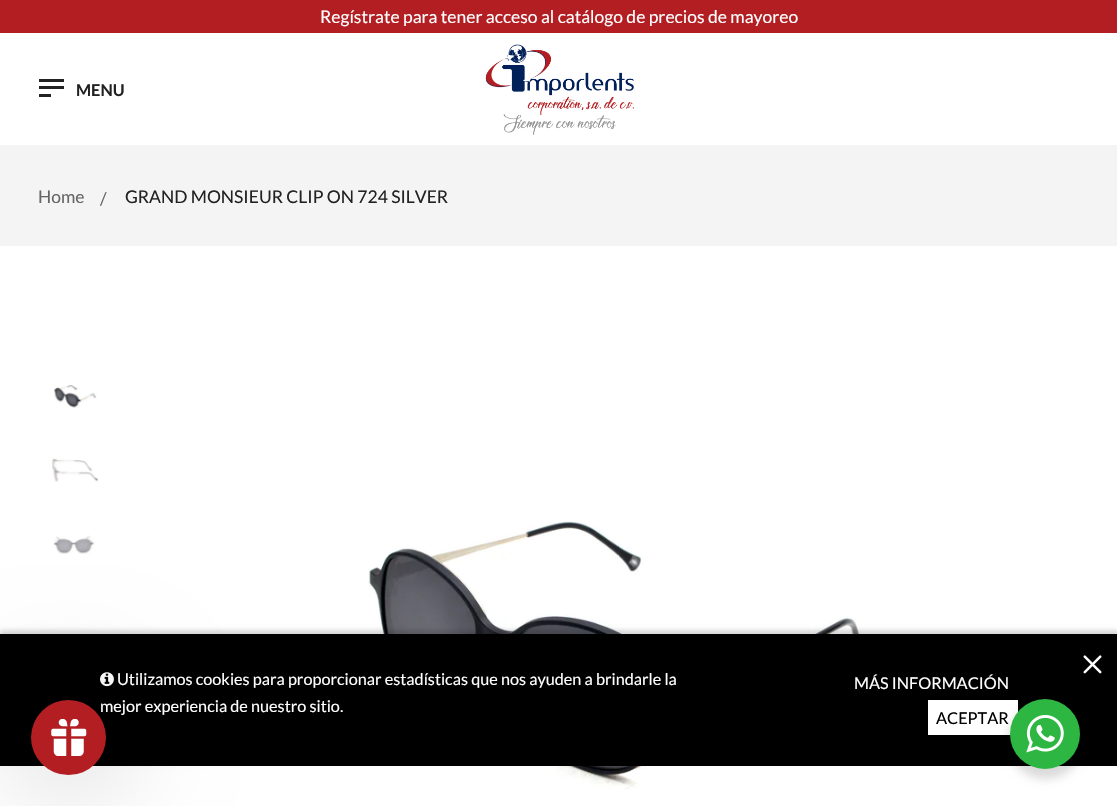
#include "include/core/SkBlurTypes.h"
#include "include/core/SkCanvas.h"
#include "include/core/SkData.h"
#include "include/core/SkFont.h"
#include "include/core/SkFontMgr.h"
#include "include/core/SkImage.h"
#include "include/core/SkMaskFilter.h"
#include "include/core/SkPaint.h"
#include "include/core/SkPathBuilder.h"
#include "include/core/SkTextBlob.h"
#include "include/effects/SkDashPathEffect.h"
#include "include/effects/SkGradientShader.h"
#include "include/utils/SkParsePath.h"

extern sk_sp<SkFontMgr> fontMgr;

static SkFont font(const char* family, int weight, float size, bool italic = false) {
    SkFontStyle style(weight, SkFontStyle::kNormal_Width,
        italic ? SkFontStyle::kItalic_Slant : SkFontStyle::kUpright_Slant);
    SkFont result(fontMgr->matchFamilyStyle(family, style), size);
    result.setSubpixel(true);
    return result;
}

static void drawLabel(SkCanvas* canvas, const char* s, float x, float y, const SkFont& font, SkColor color) {
    SkPaint ink(SkColor4f::FromColor(color));
    ink.setAntiAlias(true);
    canvas->drawString(s, x, y, font, ink);
}

static void fillRect(SkCanvas* canvas, float x, float y, float w, float h, SkColor color) {
    SkPaint ink(SkColor4f::FromColor(color));
    ink.setAntiAlias(true);
    canvas->drawRect(SkRect::MakeXYWH(x, y, w, h), ink);
}

static void drawPhoto(SkCanvas* canvas, const char* path, float x, float y, float w, float h) {
    auto image = SkImages::DeferredFromEncodedData(SkData::MakeFromFileName(path));
    canvas->drawImageRect(image, SkRect::MakeXYWH(x, y, w, h), SkSamplingOptions());
}

void draw(SkCanvas* canvas) {
    SkPaint paint;
    paint.setAntiAlias(true);
    canvas->clear(0xFFFFFFFF);
    fillRect(canvas, 0, 0, 1117, 33, 0xFFB31E22);
    SkFont font1 = font("Lato", 400, 17.5f);
    drawLabel(canvas, "Regístrate para tener acceso al catálogo de precios de mayoreo", 320, 23, font1, 0xFFFFFFFF);
    fillRect(canvas, 39, 79, 25, 3, 0xFF222222);
    fillRect(canvas, 39, 86, 25, 3, 0xFF222222);
    fillRect(canvas, 39, 94, 12, 3, 0xFF222222);
    SkFont font2 = font("Lato", 700, 16.25f);
    drawLabel(canvas, "MENU", 76, 96, font2, 0xFF222222);
    drawPhoto(canvas, "assets/img1.png", 485, 44, 149, 91);
    fillRect(canvas, 0, 145, 1117, 101, 0xFFF4F4F4);
    drawLabel(canvas, "Home", 38, 203, font1, 0xFF666666);
    drawLabel(canvas, "/", 100, 205, font1, 0xFF666666);
    drawLabel(canvas, "GRAND MONSIEUR CLIP ON 724 SILVER", 125, 203, font1, 0xFF222222);
    drawPhoto(canvas, "assets/img2.png", 53, 385, 44, 23);
    drawPhoto(canvas, "assets/img3.png", 52, 458, 47, 24);
    drawPhoto(canvas, "assets/img4.png", 53, 535, 42, 19);
    drawPhoto(canvas, "assets/img5.png", 368, 521, 504, 269);
    paint.setColor(0x26000000);
    paint.setMaskFilter(SkMaskFilter::MakeBlur(kNormal_SkBlurStyle, 2));
    canvas->drawRect(SkRect::MakeXYWH(0, 630, 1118, 133), paint);
    paint.setMaskFilter(nullptr);
    fillRect(canvas, 0, 634, 1117, 132, 0xFF000000);
    drawPhoto(canvas, "assets/img8.png", 100, 672, 14, 15);
    paint.setColor(0x1F000000);
    paint.setMaskFilter(SkMaskFilter::MakeBlur(kNormal_SkBlurStyle, 50));
    canvas->drawRoundRect(SkRect::MakeXYWH(6, 675, 125, 125), 62.5f, 62.5f, paint);
    paint.setMaskFilter(nullptr);
    SkFont font3 = font("Lato", 400, 16.25f);
    drawLabel(canvas, "mejor experiencia de nuestro sitio.", 100, 712, font3, 0xFFFFFFFF);
    paint.setColor(0xFFB31E22);
    canvas->drawCircle(68.5f, 737.5f, 37.5f, paint);
    drawPhoto(canvas, "assets/img6.png", 51, 719, 36, 37);
    drawPhoto(canvas, "assets/img7.png", 1083, 655, 19, 19);
    drawLabel(canvas, "Utilizamos cookies para proporcionar estadísticas que nos ayuden a brindarle la", 117, 685, font3, 0xFFFFFFFF);
    drawLabel(canvas, "MÁS INFORMACIÓN", 854, 689, font3, 0xFFFFFFFF);
    fillRect(canvas, 928, 700, 90, 35, 0xFFFFFFFF);
    drawLabel(canvas, "ACEPTAR", 936, 724, font3, 0xFF000000);
    paint.setColor(0x24000000);
    paint.setMaskFilter(SkMaskFilter::MakeBlur(kNormal_SkBlurStyle, 5));
    canvas->drawRoundRect(SkRect::MakeXYWH(1008, 704, 75, 75), 37.5f, 37.5f, paint);
    paint.setMaskFilter(nullptr);
    paint.setColor(0xFF2DB742);
    canvas->drawCircle(1045, 734, 35, paint);
    drawPhoto(canvas, "assets/img9.png", 1026, 715, 38, 38);
}
